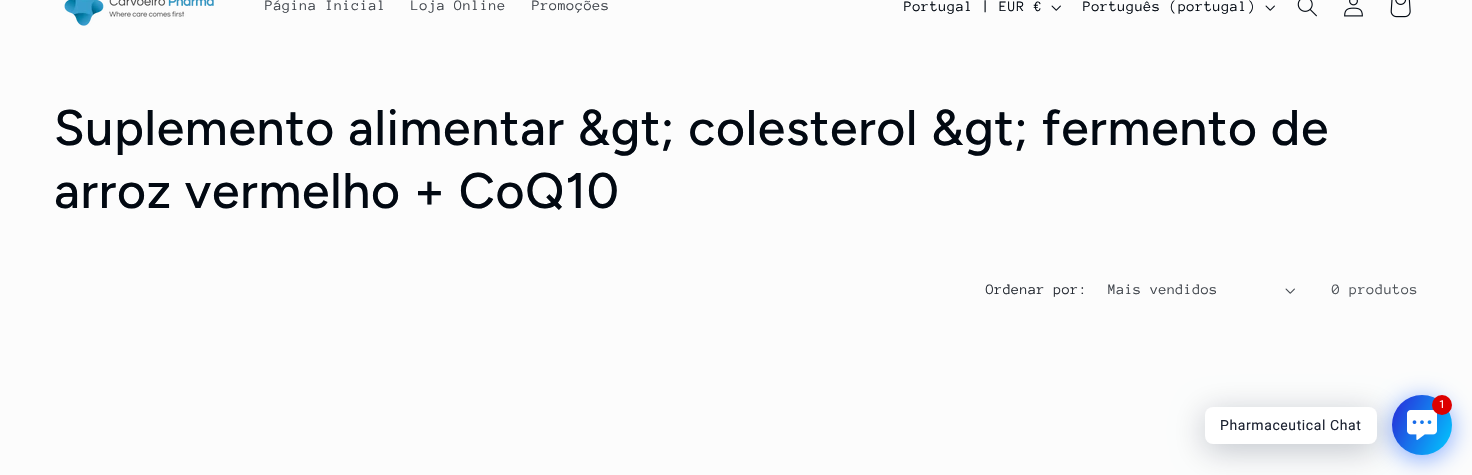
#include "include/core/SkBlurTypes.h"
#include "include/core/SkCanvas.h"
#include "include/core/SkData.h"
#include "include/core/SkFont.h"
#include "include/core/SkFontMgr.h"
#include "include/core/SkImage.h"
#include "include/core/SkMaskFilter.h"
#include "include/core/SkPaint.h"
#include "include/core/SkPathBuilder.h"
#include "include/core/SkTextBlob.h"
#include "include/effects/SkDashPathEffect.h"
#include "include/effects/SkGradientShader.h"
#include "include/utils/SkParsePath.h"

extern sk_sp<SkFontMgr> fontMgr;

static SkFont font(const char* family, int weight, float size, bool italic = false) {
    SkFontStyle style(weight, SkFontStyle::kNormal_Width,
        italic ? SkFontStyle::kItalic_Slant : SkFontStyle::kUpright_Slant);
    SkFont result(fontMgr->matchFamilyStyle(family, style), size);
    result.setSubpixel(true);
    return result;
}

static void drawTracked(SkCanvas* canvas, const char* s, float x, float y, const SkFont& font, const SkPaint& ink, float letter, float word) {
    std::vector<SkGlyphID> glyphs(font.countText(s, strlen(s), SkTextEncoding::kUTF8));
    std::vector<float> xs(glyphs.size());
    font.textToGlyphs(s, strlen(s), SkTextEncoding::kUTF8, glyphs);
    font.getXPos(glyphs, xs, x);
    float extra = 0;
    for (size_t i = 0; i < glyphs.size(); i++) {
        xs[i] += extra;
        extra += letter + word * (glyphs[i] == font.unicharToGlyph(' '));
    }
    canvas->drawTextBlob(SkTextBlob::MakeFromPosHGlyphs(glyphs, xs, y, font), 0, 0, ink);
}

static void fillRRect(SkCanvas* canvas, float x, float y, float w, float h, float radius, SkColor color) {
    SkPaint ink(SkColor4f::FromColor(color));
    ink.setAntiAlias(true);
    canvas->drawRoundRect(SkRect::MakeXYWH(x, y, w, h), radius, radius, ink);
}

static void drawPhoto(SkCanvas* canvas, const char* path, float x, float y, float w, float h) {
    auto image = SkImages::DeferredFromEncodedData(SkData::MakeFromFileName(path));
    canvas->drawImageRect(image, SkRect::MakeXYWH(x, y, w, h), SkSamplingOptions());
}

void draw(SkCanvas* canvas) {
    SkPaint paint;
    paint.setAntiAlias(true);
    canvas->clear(0xFFFCFCFC);
    drawPhoto(canvas, "assets/img1.png", 64, 0, 150, 26);
    SkFont font1 = font("Anonymous Pro", 400, 14.75f);
    paint.setColor(0xFF41464D);
    drawTracked(canvas, "Página Inicial", 265, 10, font1, paint, 0.6f, 0);
    drawTracked(canvas, "Loja Online", 411, 10, font1, paint, 0.6f, 0);
    drawTracked(canvas, "Promoções", 532, 10, font1, paint, 0.6f, 0);
    paint.setColor(0xFF020912);
    drawTracked(canvas, "Portugal | EUR €", 904, 11, font1, paint, 0.6f, 0);
    drawPhoto(canvas, "assets/img2.png", 1051, 5, 10, 6);
    drawTracked(canvas, "Português (portugal)", 1083, 11, font1, paint, 0.6f, 0);
    drawPhoto(canvas, "assets/img2.png", 1265, 5, 10, 6);
    drawPhoto(canvas, "assets/img3.png", 1297, 0, 20, 17);
    drawPhoto(canvas, "assets/img4.png", 1344, 0, 19, 17);
    drawPhoto(canvas, "assets/img5.png", 1390, 0, 21, 18);
    SkFont font2 = font("Figtree", 500, 50);
    drawTracked(canvas, "Suplemento alimentar &gt; colesterol &gt; fermento de", 54, 145, font2, paint, 0.75f, 0);
    drawTracked(canvas, "arroz vermelho + CoQ10", 54, 208, font2, paint, 0.75f, 0);
    paint.setColor(0xFF282D35);
    drawTracked(canvas, "Ordenar por:", 986, 294, font1, paint, 0.4f, 0);
    paint.setColor(0xFF41464D);
    drawTracked(canvas, "Mais vendidos", 1108, 294, font1, paint, 0.4f, 0);
    drawPhoto(canvas, "assets/img6.png", 1285, 288, 10, 6);
    paint.setColor(0xFF4D5258);
    drawTracked(canvas, "0 produtos", 1332, 294, font1, paint, 0.6f, 0);
    paint.setColor(0x80004DFF);
    paint.setMaskFilter(SkMaskFilter::MakeBlur(kNormal_SkBlurStyle, 12));
    canvas->drawRoundRect(SkRect::MakeXYWH(1392, 399, 60, 60), 30, 30, paint);
    paint.setMaskFilter(nullptr);
    {
        const SkColor colors[] = {0xFF2A27DA, 0xFF00CCFF};
        const float stops[] = {0, 1};
        const SkPoint ends[] = {{1386, 408}, {1458, 442}};
        paint.setShader(SkGradientShader::MakeLinear(ends, colors, stops, 2, SkTileMode::kClamp));
        paint.setAlpha(255);
    }
    canvas->drawCircle(1422, 425, 30, paint);
    paint.setShader(nullptr);
    paint.setColor(0x3D00122E);
    paint.setMaskFilter(SkMaskFilter::MakeBlur(kNormal_SkBlurStyle, 16));
    canvas->drawRoundRect(SkRect::MakeXYWH(1205, 413, 172, 37), 8, 8, paint);
    paint.setMaskFilter(nullptr);
    drawPhoto(canvas, "assets/img7.png", 1407, 410, 30, 30);
    paint.setColor(0xFFDD0000);
    canvas->drawCircle(1442, 405, 10, paint);
    SkFont font3 = font("Roboto", 400, 11);
    paint.setColor(0xFFFFFFFF);
    drawTracked(canvas, "1", 1439, 408, font3, paint, 0.6f, 0);
    fillRRect(canvas, 1205, 407, 172, 37, 8, 0xFFFFFFFF);
    SkFont font4 = font("Roboto", 400, 14);
    paint.setColor(0xFF1E2433);
    drawTracked(canvas, "Pharmaceutical Chat", 1220, 430, font4, paint, 0.6f, 0);
}
